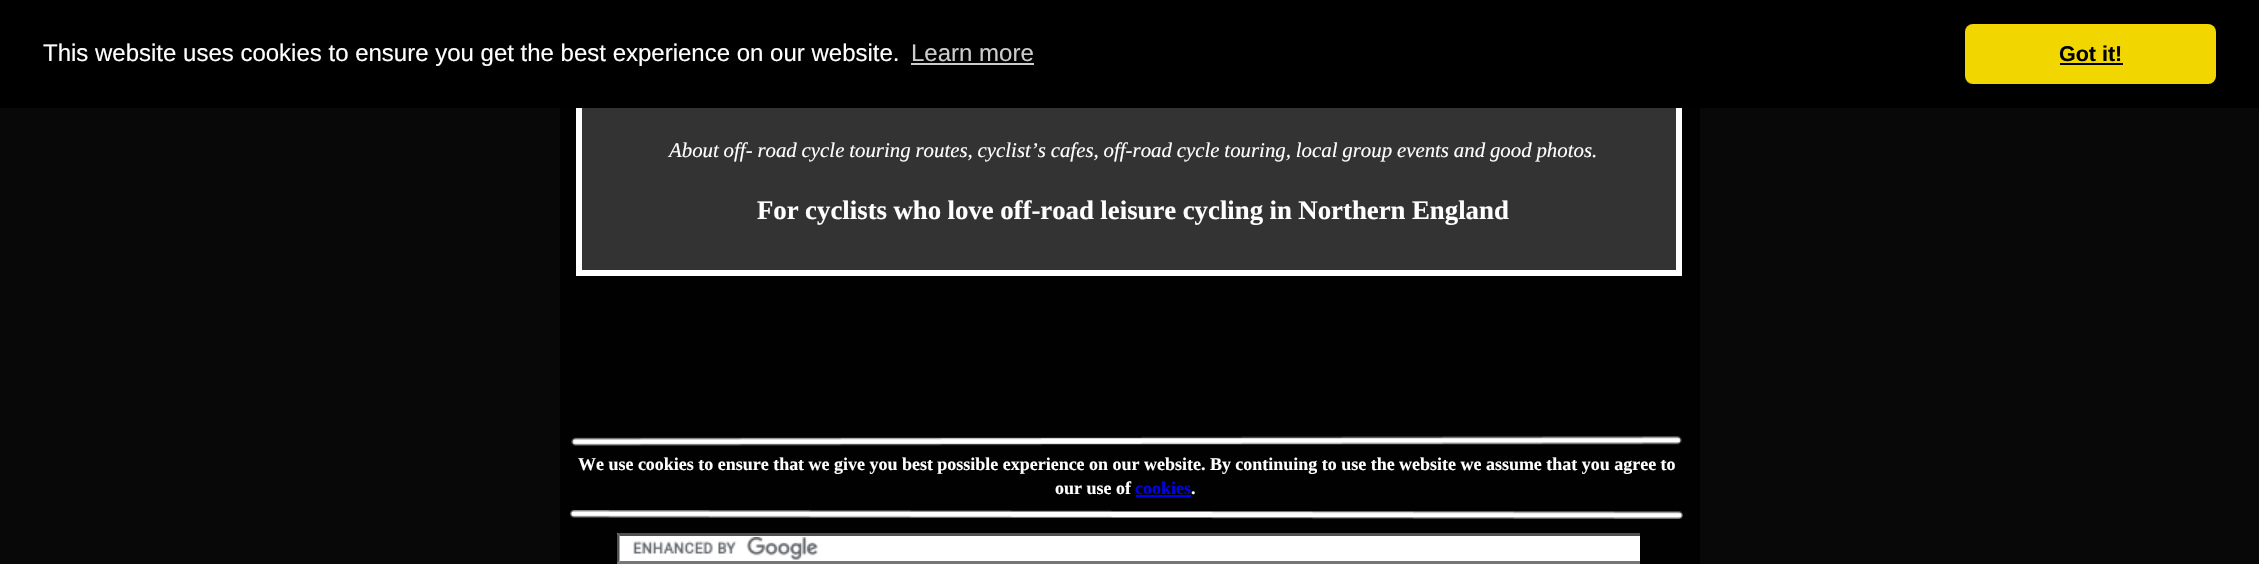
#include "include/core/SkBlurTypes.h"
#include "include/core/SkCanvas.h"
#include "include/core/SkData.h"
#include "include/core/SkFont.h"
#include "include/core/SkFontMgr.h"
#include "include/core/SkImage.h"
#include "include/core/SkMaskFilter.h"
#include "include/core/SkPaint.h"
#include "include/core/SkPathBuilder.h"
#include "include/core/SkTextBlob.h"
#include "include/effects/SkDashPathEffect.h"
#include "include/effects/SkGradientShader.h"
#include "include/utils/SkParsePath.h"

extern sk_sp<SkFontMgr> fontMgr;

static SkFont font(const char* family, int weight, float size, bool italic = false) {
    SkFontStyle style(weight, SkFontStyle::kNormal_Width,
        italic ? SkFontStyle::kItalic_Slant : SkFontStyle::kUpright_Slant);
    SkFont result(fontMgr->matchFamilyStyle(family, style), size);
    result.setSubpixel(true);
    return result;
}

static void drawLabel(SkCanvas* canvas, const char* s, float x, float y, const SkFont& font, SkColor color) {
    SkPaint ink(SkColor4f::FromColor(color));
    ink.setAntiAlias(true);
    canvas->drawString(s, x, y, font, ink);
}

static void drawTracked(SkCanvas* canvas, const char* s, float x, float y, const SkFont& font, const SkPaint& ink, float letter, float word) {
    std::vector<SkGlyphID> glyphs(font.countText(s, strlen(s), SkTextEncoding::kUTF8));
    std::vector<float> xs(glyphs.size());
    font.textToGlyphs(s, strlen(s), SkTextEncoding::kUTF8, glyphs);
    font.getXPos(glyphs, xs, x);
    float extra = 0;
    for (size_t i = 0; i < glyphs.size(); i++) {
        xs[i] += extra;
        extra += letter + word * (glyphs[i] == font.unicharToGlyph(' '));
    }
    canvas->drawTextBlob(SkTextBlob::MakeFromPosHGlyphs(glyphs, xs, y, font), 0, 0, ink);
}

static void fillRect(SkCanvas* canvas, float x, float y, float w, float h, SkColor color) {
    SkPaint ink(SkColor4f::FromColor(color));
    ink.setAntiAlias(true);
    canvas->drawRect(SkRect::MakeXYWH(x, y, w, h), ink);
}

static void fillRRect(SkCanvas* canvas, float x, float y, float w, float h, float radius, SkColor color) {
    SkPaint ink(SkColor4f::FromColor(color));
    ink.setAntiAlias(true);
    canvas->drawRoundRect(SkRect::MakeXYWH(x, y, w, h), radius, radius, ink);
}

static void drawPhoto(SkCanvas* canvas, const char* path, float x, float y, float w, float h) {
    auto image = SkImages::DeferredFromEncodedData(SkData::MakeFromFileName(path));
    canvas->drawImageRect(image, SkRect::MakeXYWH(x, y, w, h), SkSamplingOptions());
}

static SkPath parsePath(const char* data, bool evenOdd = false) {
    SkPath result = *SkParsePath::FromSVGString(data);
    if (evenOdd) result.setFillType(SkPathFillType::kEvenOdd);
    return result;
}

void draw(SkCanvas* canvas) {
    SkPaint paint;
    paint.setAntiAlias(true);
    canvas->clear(0xFF090808);
    fillRect(canvas, 560, 108, 1140, 456, 0xFF010101);
    fillRect(canvas, 582, 108, 1094, 162, 0xFF333333);
    paint.setStroke(true);
    paint.setStrokeWidth(6);
    paint.setColor(0xFFFFFFFF);
    canvas->drawRect(SkRect::MakeXYWH(579, 23, 1100, 250), paint);
    fillRect(canvas, 0, 0, 2259, 108, 0xFF000000);
    SkFont font1 = font("Liberation Sans", 400, 24);
    drawLabel(canvas, "This website uses cookies to ensure you get the best experience on our website.", 43, 61, font1, 0xFFFFFFFF);
    drawLabel(canvas, "Learn more", 911, 61, font1, 0xFFCCCCCC);
    fillRect(canvas, 911, 63, 123, 2, 0xFFCCCCCC);
    fillRRect(canvas, 1965, 24, 251, 60, 8, 0xFFF1D600);
    SkFont font2 = font("Liberation Sans", 700, 21.5f);
    drawLabel(canvas, "Got it!", 2059, 61, font2, 0xFF000000);
    fillRect(canvas, 2060, 63, 63, 2, 0xFF000000);
    SkFont font3 = font("Liberation Serif", 400, 20.85f, true);
    paint.setStroke(false);
    drawTracked(canvas, "About off- road cycle touring routes, cyclist’s cafes, off-road cycle touring, local group events and good photos.", 669, 157, font3, paint, 0, -0.4f);
    SkFont font4 = font("Liberation Serif", 700, 26.8f);
    drawTracked(canvas, "For cyclists who love off-road leisure cycling in Northern England", 757, 219, font4, paint, 0, -0.25f);
    drawPhoto(canvas, "assets/img1.png", 571, 436, 1111, 10);
    SkFont font5 = font("Liberation Serif", 700, 17.97f);
    drawLabel(canvas, "We use cookies to ensure that we give you best possible experience on our website. By continuing to use the website we assume that you agree to", 578, 470, font5, 0xFFFFFFFF);
    drawLabel(canvas, "our use of", 1055, 494, font5, 0xFFFFFFFF);
    drawLabel(canvas, "cookies", 1135, 494, font5, 0xFF0000EE);
    fillRect(canvas, 1136, 495, 55, 2, 0xFF0000EE);
    drawLabel(canvas, ".", 1191, 494, font5, 0xFFFFFFFF);
    drawPhoto(canvas, "assets/img2.png", 570, 510, 1113, 9);
    fillRect(canvas, 617, 533, 1023, 31, 0xFFFFFFFF);
    drawPhoto(canvas, "assets/img3.png", 633, 537, 185, 23);
    canvas->save();
    canvas->clipRect(SkRect::MakeXYWH(617, 533, 1023, 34));
    paint.setColor(0xFF4F4F4F);
    canvas->drawPath(parsePath("M616 532H1854L1851 536H620Z"), paint);
    paint.setColor(0xFF767676);
    canvas->drawPath(parsePath("M1854 564H616L620 561H1851Z"), paint);
    paint.setColor(0xFF4F4F4F);
    canvas->drawPath(parsePath("M616.5 564V532.5L619.5 535.5V561Z"), paint);
    canvas->restore();
}
